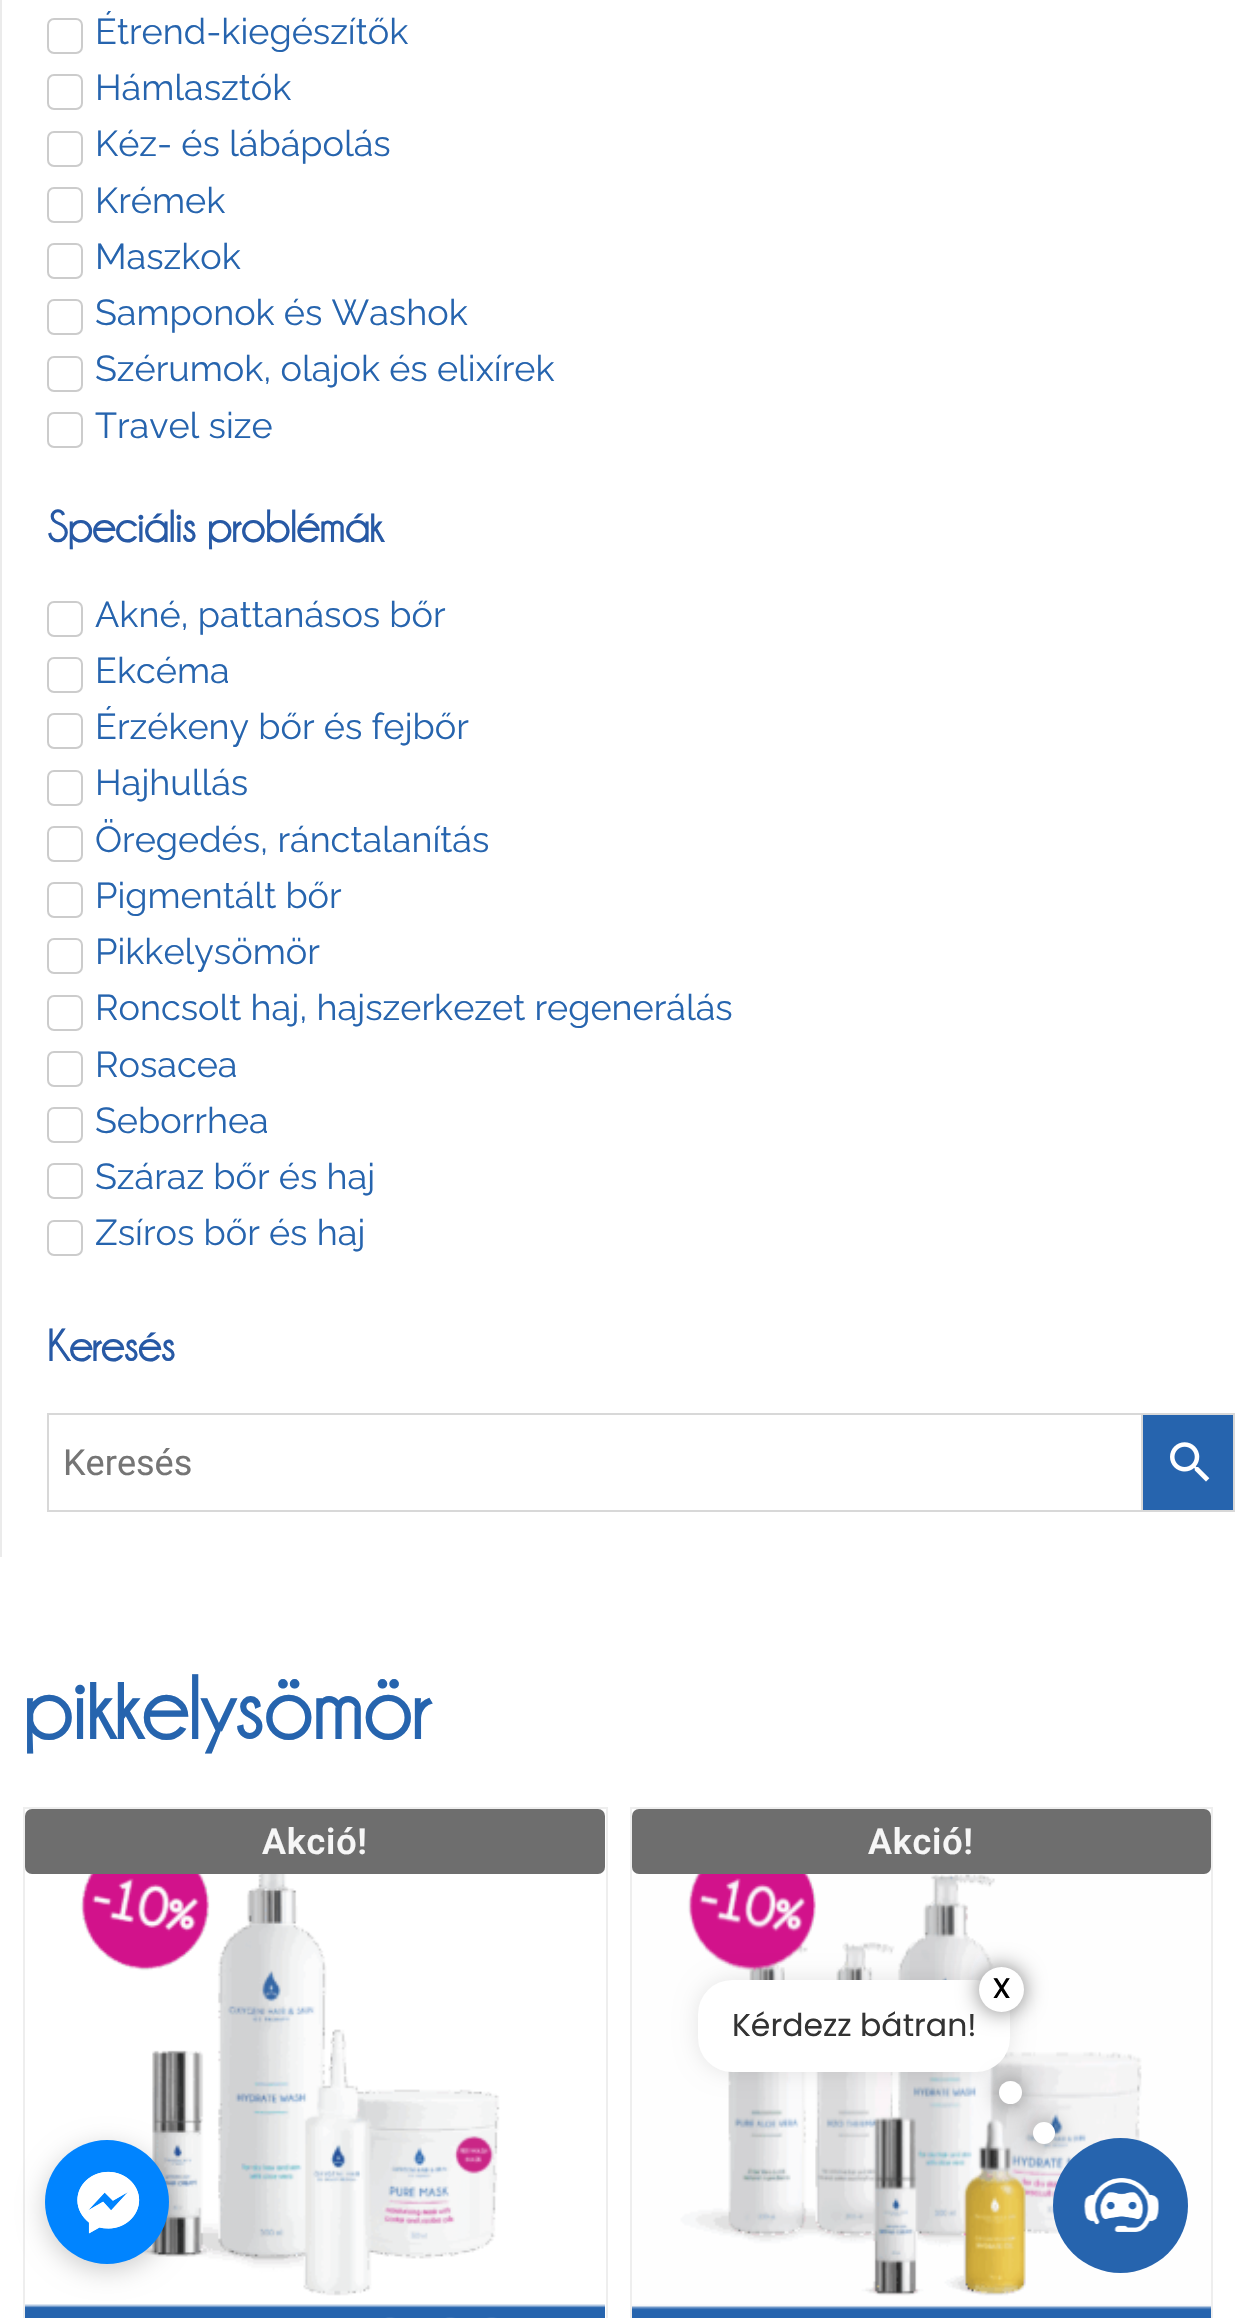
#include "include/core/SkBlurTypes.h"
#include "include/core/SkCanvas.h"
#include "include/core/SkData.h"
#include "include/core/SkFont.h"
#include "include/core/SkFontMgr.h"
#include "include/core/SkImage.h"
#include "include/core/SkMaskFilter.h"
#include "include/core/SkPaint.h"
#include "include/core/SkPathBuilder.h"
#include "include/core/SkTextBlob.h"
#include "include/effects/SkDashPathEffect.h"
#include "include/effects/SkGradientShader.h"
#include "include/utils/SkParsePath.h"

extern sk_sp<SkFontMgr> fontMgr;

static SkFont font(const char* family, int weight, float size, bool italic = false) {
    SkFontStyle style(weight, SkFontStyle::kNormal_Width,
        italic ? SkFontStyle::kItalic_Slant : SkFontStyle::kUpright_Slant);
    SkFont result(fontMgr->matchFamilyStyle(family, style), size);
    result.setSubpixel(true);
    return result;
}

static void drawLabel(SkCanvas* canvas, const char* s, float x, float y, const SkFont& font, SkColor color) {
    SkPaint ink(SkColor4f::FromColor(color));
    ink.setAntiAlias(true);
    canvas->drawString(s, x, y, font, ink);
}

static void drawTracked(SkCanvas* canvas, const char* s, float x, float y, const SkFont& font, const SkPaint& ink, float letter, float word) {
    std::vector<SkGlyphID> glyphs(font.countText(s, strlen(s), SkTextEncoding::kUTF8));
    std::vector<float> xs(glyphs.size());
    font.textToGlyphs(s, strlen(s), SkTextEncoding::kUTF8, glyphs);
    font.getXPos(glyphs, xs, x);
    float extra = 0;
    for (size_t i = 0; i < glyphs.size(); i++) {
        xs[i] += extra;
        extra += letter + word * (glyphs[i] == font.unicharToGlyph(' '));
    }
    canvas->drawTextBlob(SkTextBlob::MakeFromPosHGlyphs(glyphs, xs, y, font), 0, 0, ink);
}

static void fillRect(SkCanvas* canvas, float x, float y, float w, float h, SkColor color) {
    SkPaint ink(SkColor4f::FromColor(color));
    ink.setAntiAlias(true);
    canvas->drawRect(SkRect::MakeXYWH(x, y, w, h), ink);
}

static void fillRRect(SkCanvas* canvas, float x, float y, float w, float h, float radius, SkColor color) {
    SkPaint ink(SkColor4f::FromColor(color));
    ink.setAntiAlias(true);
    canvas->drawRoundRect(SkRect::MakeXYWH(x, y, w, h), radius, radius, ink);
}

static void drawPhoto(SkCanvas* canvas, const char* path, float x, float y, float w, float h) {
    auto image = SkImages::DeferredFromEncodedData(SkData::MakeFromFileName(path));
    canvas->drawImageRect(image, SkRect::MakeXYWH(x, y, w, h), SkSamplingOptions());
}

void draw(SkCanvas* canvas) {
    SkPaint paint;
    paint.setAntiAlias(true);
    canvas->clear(0xFFFFFFFF);
    fillRect(canvas, 0, 0, 2, 1557, 0xFFEBEBEB);
    paint.setStroke(true);
    paint.setStrokeWidth(2);
    paint.setColor(0xFFCCCCCC);
    canvas->drawRoundRect(SkRect::MakeXYWH(48, 19, 34, 34), 6, 6, paint);
    SkFont font1 = font("Raleway", 400, 36);
    drawLabel(canvas, "Étrend-kiegészítők", 95, 44, font1, 0xFF2664AE);
    canvas->drawRoundRect(SkRect::MakeXYWH(48, 75, 34, 34), 6, 6, paint);
    drawLabel(canvas, "Hámlasztók", 95, 100, font1, 0xFF2664AE);
    canvas->drawRoundRect(SkRect::MakeXYWH(48, 132, 34, 34), 6, 6, paint);
    drawLabel(canvas, "Kéz- és lábápolás", 95, 156, font1, 0xFF2664AE);
    canvas->drawRoundRect(SkRect::MakeXYWH(48, 188, 34, 34), 6, 6, paint);
    drawLabel(canvas, "Krémek", 95, 213, font1, 0xFF2664AE);
    canvas->drawRoundRect(SkRect::MakeXYWH(48, 244, 34, 34), 6, 6, paint);
    drawLabel(canvas, "Maszkok", 95, 269, font1, 0xFF2664AE);
    canvas->drawRoundRect(SkRect::MakeXYWH(48, 300, 34, 34), 6, 6, paint);
    drawLabel(canvas, "Samponok és Washok", 95, 325, font1, 0xFF2664AE);
    canvas->drawRoundRect(SkRect::MakeXYWH(48, 357, 34, 34), 6, 6, paint);
    drawLabel(canvas, "Szérumok, olajok és elixírek", 95, 381, font1, 0xFF2664AE);
    canvas->drawRoundRect(SkRect::MakeXYWH(48, 413, 34, 34), 6, 6, paint);
    drawLabel(canvas, "Travel size", 95, 438, font1, 0xFF2664AE);
    SkFont font2 = font("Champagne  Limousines", 700, 45);
    drawLabel(canvas, "Speciális problémák", 47, 542, font2, 0xFF2759A5);
    canvas->drawRoundRect(SkRect::MakeXYWH(48, 602, 34, 34), 6, 6, paint);
    drawLabel(canvas, "Akné, pattanásos bőr", 95, 627, font1, 0xFF2664AE);
    canvas->drawRoundRect(SkRect::MakeXYWH(48, 658, 34, 34), 6, 6, paint);
    drawLabel(canvas, "Ekcéma", 95, 683, font1, 0xFF2664AE);
    canvas->drawRoundRect(SkRect::MakeXYWH(48, 714, 34, 34), 6, 6, paint);
    drawLabel(canvas, "Érzékeny bőr és fejbőr", 95, 739, font1, 0xFF2664AE);
    canvas->drawRoundRect(SkRect::MakeXYWH(48, 771, 34, 34), 6, 6, paint);
    drawLabel(canvas, "Hajhullás", 95, 795, font1, 0xFF2664AE);
    canvas->drawRoundRect(SkRect::MakeXYWH(48, 827, 34, 34), 6, 6, paint);
    drawLabel(canvas, "Öregedés, ránctalanítás", 95, 852, font1, 0xFF2664AE);
    canvas->drawRoundRect(SkRect::MakeXYWH(48, 883, 34, 34), 6, 6, paint);
    drawLabel(canvas, "Pigmentált bőr", 95, 908, font1, 0xFF2664AE);
    canvas->drawRoundRect(SkRect::MakeXYWH(48, 939, 34, 34), 6, 6, paint);
    drawLabel(canvas, "Pikkelysömör", 95, 964, font1, 0xFF2664AE);
    canvas->drawRoundRect(SkRect::MakeXYWH(48, 996, 34, 34), 6, 6, paint);
    drawLabel(canvas, "Roncsolt haj, hajszerkezet regenerálás", 95, 1020, font1, 0xFF2664AE);
    canvas->drawRoundRect(SkRect::MakeXYWH(48, 1052, 34, 34), 6, 6, paint);
    drawLabel(canvas, "Rosacea", 95, 1077, font1, 0xFF2664AE);
    canvas->drawRoundRect(SkRect::MakeXYWH(48, 1108, 34, 34), 6, 6, paint);
    drawLabel(canvas, "Seborrhea", 95, 1133, font1, 0xFF2664AE);
    canvas->drawRoundRect(SkRect::MakeXYWH(48, 1164, 34, 34), 6, 6, paint);
    drawLabel(canvas, "Száraz bőr és haj", 95, 1189, font1, 0xFF2664AE);
    canvas->drawRoundRect(SkRect::MakeXYWH(48, 1221, 34, 34), 6, 6, paint);
    drawLabel(canvas, "Zsíros bőr és haj", 95, 1245, font1, 0xFF2664AE);
    drawLabel(canvas, "Keresés", 47, 1361, font2, 0xFF2759A5);
    paint.setStroke(false);
    paint.setColor(0xFF2664AE);
    canvas->drawRect(SkRect::MakeXYWH(1142, 1414, 92, 97), paint);
    paint.setStroke(true);
    paint.setColor(0xFFD8D8D8);
    canvas->drawRect(SkRect::MakeXYWH(1142, 1414, 92, 97), paint);
    canvas->drawRect(SkRect::MakeXYWH(48, 1414, 1094, 97), paint);
    SkFont font3 = font("Roboto", 400, 36);
    drawLabel(canvas, "Keresés", 63, 1475, font3, 0xFF757575);
    drawPhoto(canvas, "assets/img1.png", 1170, 1442, 40, 40);
    SkFont font4 = font("Champagne  Limousines", 700, 90);
    drawLabel(canvas, "pikkelysömör", 23, 1739, font4, 0xFF2664AE);
    paint.setColor(0xFFEEEEEE);
    canvas->drawRect(SkRect::MakeXYWH(24, 1808, 583, 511), paint);
    fillRRect(canvas, 25, 1809, 580, 65, 7, 0xFF6E6E6E);
    SkFont font5 = font("Roboto", 600, 36);
    paint.setStroke(false);
    paint.setColor(0xFFF6F6F6);
    drawTracked(canvas, "Akció!", 262, 1854, font5, paint, 0.75f, 0);
    drawPhoto(canvas, "assets/img2.png", 25, 1874, 580, 444);
    paint.setStroke(true);
    paint.setColor(0xFFEEEEEE);
    canvas->drawRect(SkRect::MakeXYWH(631, 1808, 581, 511), paint);
    fillRRect(canvas, 632, 1809, 579, 65, 7, 0xFF6E6E6E);
    paint.setStroke(false);
    paint.setColor(0xFFF6F6F6);
    drawTracked(canvas, "Akció!", 868, 1854, font5, paint, 0.75f, 0);
    drawPhoto(canvas, "assets/img3.png", 632, 1874, 579, 444);
    paint.setColor(0x1A000000);
    paint.setMaskFilter(SkMaskFilter::MakeBlur(kNormal_SkBlurStyle, 11));
    canvas->drawRoundRect(SkRect::MakeXYWH(698, 1980, 312, 92), 34, 34, paint);
    paint.setMaskFilter(nullptr);
    fillRRect(canvas, 698, 1980, 312, 92, 34, 0xFFFFFFFF);
    paint.setColor(0x80000000);
    paint.setMaskFilter(SkMaskFilter::MakeBlur(kNormal_SkBlurStyle, 11));
    canvas->drawRoundRect(SkRect::MakeXYWH(979, 1967, 45, 45), 22.5f, 22.5f, paint);
    paint.setMaskFilter(nullptr);
    paint.setColor(0xFFFFFFFF);
    canvas->drawCircle(1001.5f, 1989.5f, 22.5f, paint);
    SkFont font6 = font("Poppins", 400, 36);
    drawLabel(canvas, "x", 993, 1998, font6, 0xFF000000);
    SkFont font7 = font("Poppins", 400, 31.5f);
    drawLabel(canvas, "Kérdezz bátran!", 732, 2036, font7, 0xFF333333);
    paint.setColor(0xFF2664AE);
    canvas->drawCircle(1120.5f, 2205.5f, 67.5f, paint);
    paint.setColor(0x80000000);
    paint.setMaskFilter(SkMaskFilter::MakeBlur(kNormal_SkBlurStyle, 11));
    canvas->drawRoundRect(SkRect::MakeXYWH(1033, 2122, 22, 22), 11, 11, paint);
    paint.setMaskFilter(nullptr);
    paint.setColor(0xFFFFFFFF);
    canvas->drawCircle(1044, 2133, 11, paint);
    paint.setColor(0x80000000);
    paint.setMaskFilter(SkMaskFilter::MakeBlur(kNormal_SkBlurStyle, 11));
    canvas->drawRoundRect(SkRect::MakeXYWH(999, 2081, 23, 23), 11.5f, 11.5f, paint);
    paint.setMaskFilter(nullptr);
    paint.setColor(0xFFFFFFFF);
    canvas->drawCircle(1010.5f, 2092.5f, 11.5f, paint);
    paint.setColor(0x33000000);
    paint.setMaskFilter(SkMaskFilter::MakeBlur(kNormal_SkBlurStyle, 13.5f));
    canvas->drawRoundRect(SkRect::MakeXYWH(45, 2147, 124, 123), 61.5f, 61.5f, paint);
    paint.setMaskFilter(nullptr);
    paint.setColor(0xFF0084FF);
    canvas->drawCircle(107, 2202, 62, paint);
    drawPhoto(canvas, "assets/img4.png", 77, 2171, 63, 63);
    drawPhoto(canvas, "assets/img5.png", 1084, 2178, 76, 54);
}
